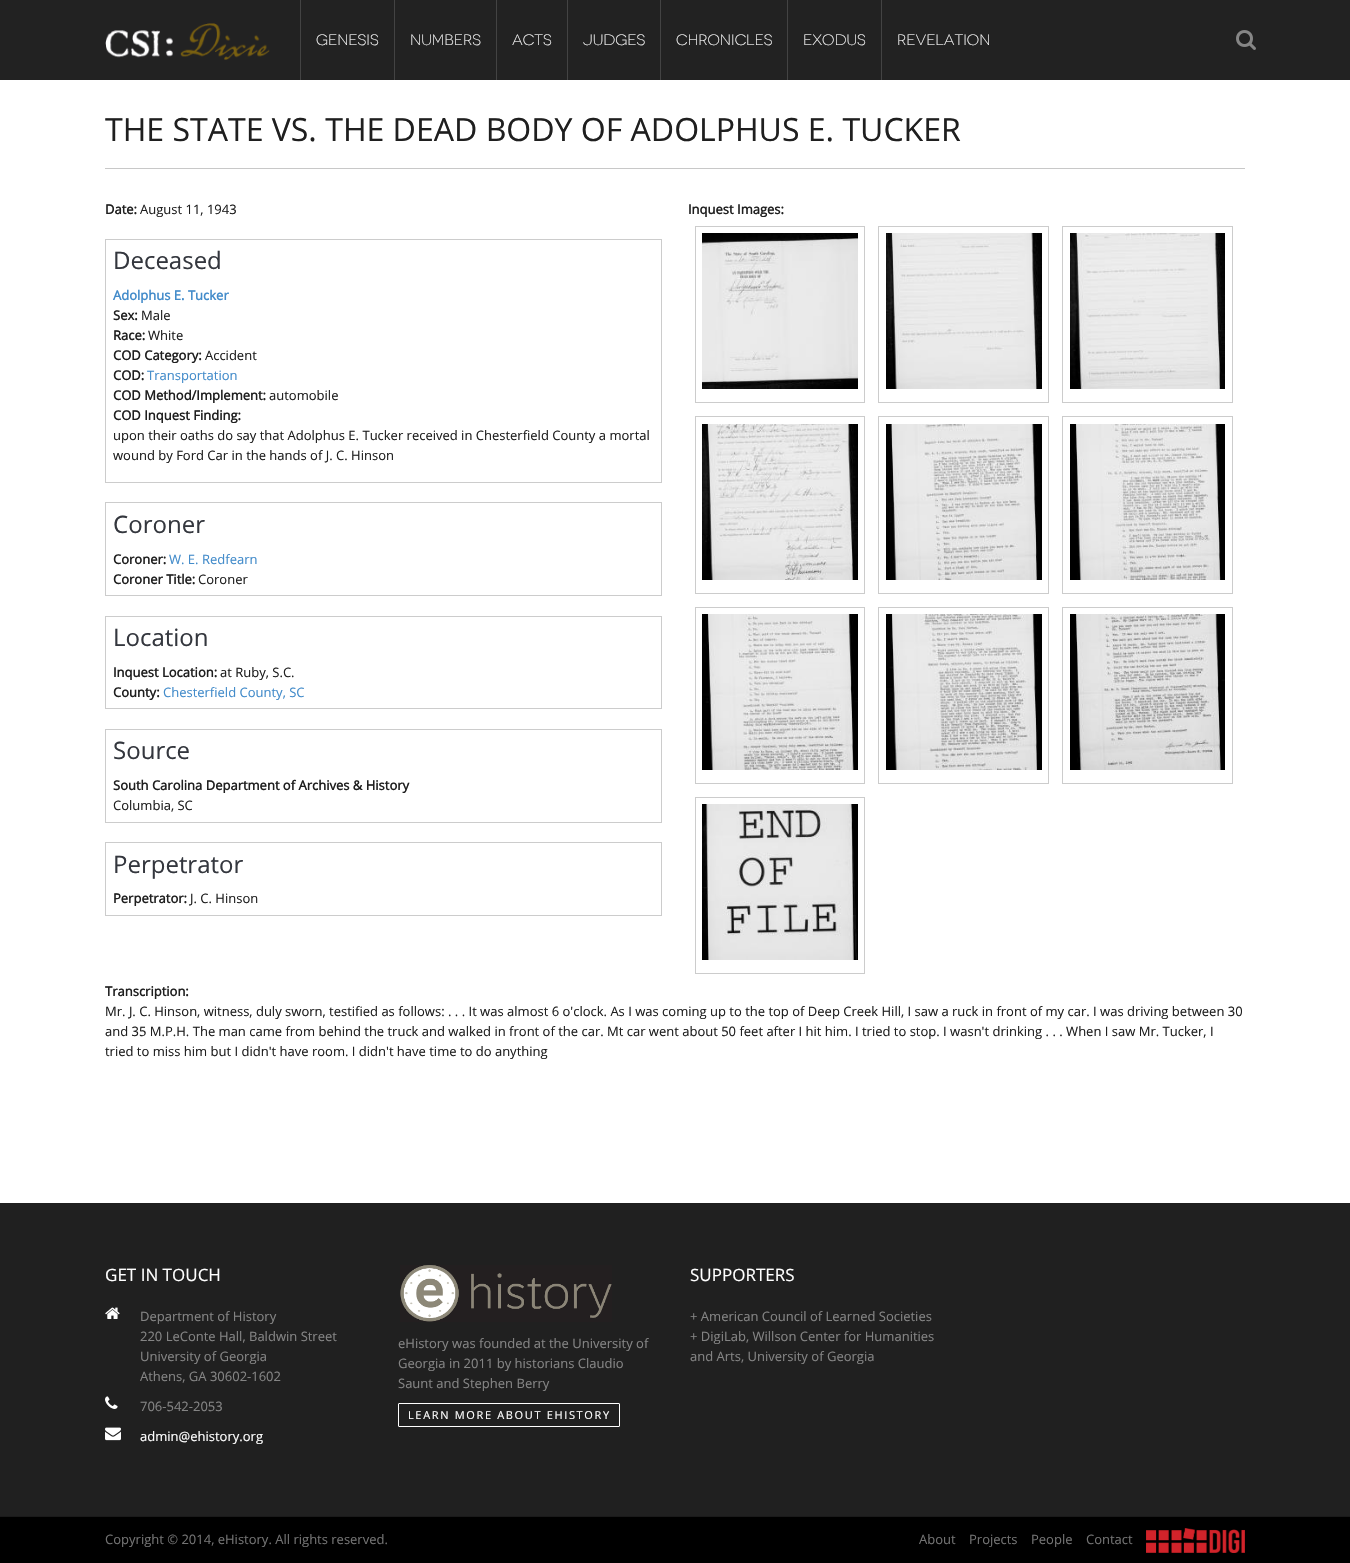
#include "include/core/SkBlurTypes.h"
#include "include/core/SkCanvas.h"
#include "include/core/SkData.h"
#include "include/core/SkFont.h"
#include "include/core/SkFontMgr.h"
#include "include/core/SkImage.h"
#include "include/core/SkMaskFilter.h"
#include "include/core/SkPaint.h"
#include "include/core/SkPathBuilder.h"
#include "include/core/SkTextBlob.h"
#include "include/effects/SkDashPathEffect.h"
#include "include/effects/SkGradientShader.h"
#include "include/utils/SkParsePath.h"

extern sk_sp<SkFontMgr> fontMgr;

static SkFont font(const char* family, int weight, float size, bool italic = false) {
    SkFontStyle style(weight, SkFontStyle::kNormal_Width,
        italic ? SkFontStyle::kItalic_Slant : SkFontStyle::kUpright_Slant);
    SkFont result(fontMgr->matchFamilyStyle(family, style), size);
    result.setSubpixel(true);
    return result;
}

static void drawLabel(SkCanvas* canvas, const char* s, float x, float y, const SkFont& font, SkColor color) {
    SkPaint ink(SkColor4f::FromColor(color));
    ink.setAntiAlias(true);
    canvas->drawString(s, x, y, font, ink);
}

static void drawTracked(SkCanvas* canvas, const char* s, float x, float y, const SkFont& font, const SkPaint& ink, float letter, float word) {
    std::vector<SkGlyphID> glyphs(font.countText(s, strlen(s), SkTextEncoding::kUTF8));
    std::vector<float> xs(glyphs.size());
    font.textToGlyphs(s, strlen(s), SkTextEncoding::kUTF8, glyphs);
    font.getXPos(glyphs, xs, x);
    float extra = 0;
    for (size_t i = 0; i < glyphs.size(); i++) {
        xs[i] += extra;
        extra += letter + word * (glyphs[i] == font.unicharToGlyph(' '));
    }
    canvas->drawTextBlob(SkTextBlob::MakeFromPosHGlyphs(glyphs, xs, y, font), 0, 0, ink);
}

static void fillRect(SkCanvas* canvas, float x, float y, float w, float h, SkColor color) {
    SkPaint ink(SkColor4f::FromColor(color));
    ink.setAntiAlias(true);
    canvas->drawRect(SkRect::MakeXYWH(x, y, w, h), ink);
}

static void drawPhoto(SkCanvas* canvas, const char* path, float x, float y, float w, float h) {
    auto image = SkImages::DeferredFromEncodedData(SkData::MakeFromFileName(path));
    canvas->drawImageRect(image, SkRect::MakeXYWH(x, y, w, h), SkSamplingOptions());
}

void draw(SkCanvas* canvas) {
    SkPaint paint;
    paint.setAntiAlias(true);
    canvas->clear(0xFFFFFFFF);
    fillRect(canvas, 0, 0, 1350, 80, 0xFF222222);
    drawPhoto(canvas, "assets/img1.png", 105, 23, 165, 37);
    fillRect(canvas, 300, 0, 1, 80, 0xFF434343);
    SkFont font1 = font("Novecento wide", 300, 15);
    drawLabel(canvas, "GENESIS", 316, 45, font1, 0xFFFFFFFF);
    fillRect(canvas, 394, 0, 1, 80, 0xFF434343);
    drawLabel(canvas, "NUMBERS", 410, 45, font1, 0xFFFFFFFF);
    fillRect(canvas, 496, 0, 1, 80, 0xFF434343);
    drawLabel(canvas, "ACTS", 512, 45, font1, 0xFFFFFFFF);
    fillRect(canvas, 567, 0, 1, 80, 0xFF434343);
    drawLabel(canvas, "JUDGES", 583, 45, font1, 0xFFFFFFFF);
    fillRect(canvas, 660, 0, 1, 80, 0xFF434343);
    drawLabel(canvas, "CHRONICLES", 676, 45, font1, 0xFFFFFFFF);
    fillRect(canvas, 787, 0, 1, 80, 0xFF434343);
    drawLabel(canvas, "EXODUS", 803, 45, font1, 0xFFFFFFFF);
    fillRect(canvas, 881, 0, 1, 80, 0xFF434343);
    drawLabel(canvas, "REVELATION", 897, 45, font1, 0xFFFFFFFF);
    drawPhoto(canvas, "assets/img2.png", 1236, 30, 20, 20);
    fillRect(canvas, 105, 168, 1140, 1, 0xFFC8C8C8);
    SkFont font2 = font("Open Sans", 400, 32);
    drawLabel(canvas, "THE STATE VS. THE DEAD BODY OF ADOLPHUS E. TUCKER", 105, 141, font2, 0xFF1F1F1F);
    SkFont font3 = font("Open Sans", 700, 13);
    drawLabel(canvas, "Date:", 105, 214, font3, 0xFF1F1F1F);
    SkFont font4 = font("Open Sans", 400, 13);
    drawLabel(canvas, "August 11, 1943", 140, 214, font4, 0xFF1F1F1F);
    paint.setStroke(true);
    paint.setStrokeWidth(1);
    paint.setColor(0xFFCCCCCC);
    canvas->drawRect(SkRect::MakeXYWH(105.5f, 239.5f, 556, 243), paint);
    SkFont font5 = font("Open Sans", 400, 24);
    drawLabel(canvas, "Deceased", 113, 269, font5, 0xFF34373E);
    drawLabel(canvas, "Adolphus E. Tucker", 113, 300, font3, 0xFF428BCA);
    drawLabel(canvas, "Sex:", 113, 320, font3, 0xFF1F1F1F);
    drawLabel(canvas, "Male", 141, 320, font4, 0xFF1F1F1F);
    drawLabel(canvas, "Race:", 113, 340, font3, 0xFF1F1F1F);
    drawLabel(canvas, "White", 148, 340, font4, 0xFF1F1F1F);
    drawLabel(canvas, "COD Category:", 113, 360, font3, 0xFF1F1F1F);
    drawLabel(canvas, "Accident", 205, 360, font4, 0xFF1F1F1F);
    drawLabel(canvas, "COD:", 113, 380, font3, 0xFF1F1F1F);
    drawLabel(canvas, "Transportation", 147, 380, font4, 0xFF428BCA);
    drawLabel(canvas, "COD Method/Implement:", 113, 400, font3, 0xFF1F1F1F);
    drawLabel(canvas, "automobile", 269, 400, font4, 0xFF1F1F1F);
    drawLabel(canvas, "COD Inquest Finding:", 113, 420, font3, 0xFF1F1F1F);
    drawLabel(canvas, "upon their oaths do say that Adolphus E. Tucker received in Chesterfield County a mortal", 113, 440, font4, 0xFF1F1F1F);
    drawLabel(canvas, "wound by Ford Car in the hands of J. C. Hinson", 113, 460, font4, 0xFF1F1F1F);
    canvas->drawRect(SkRect::MakeXYWH(105.5f, 502.5f, 556, 93), paint);
    drawLabel(canvas, "Coroner", 113, 533, font5, 0xFF34373E);
    drawLabel(canvas, "Coroner:", 113, 564, font3, 0xFF1F1F1F);
    drawLabel(canvas, "W. E. Redfearn", 169, 564, font4, 0xFF428BCA);
    drawLabel(canvas, "Coroner Title:", 113, 584, font3, 0xFF1F1F1F);
    drawLabel(canvas, "Coroner", 198, 584, font4, 0xFF1F1F1F);
    canvas->drawRect(SkRect::MakeXYWH(105.5f, 616.5f, 556, 92), paint);
    drawLabel(canvas, "Location", 113, 646, font5, 0xFF34373E);
    drawLabel(canvas, "Inquest Location:", 113, 677, font3, 0xFF1F1F1F);
    drawLabel(canvas, "at Ruby, S.C.", 220, 677, font4, 0xFF1F1F1F);
    drawLabel(canvas, "County:", 113, 697, font3, 0xFF1F1F1F);
    drawLabel(canvas, "Chesterfield County, SC", 163, 697, font4, 0xFF428BCA);
    canvas->drawRect(SkRect::MakeXYWH(105.5f, 729.5f, 556, 93), paint);
    drawLabel(canvas, "Source", 113, 759, font5, 0xFF34373E);
    drawLabel(canvas, "South Carolina Department of Archives & History", 113, 790, font3, 0xFF1F1F1F);
    drawLabel(canvas, "Columbia, SC", 113, 810, font4, 0xFF1F1F1F);
    canvas->drawRect(SkRect::MakeXYWH(105.5f, 842.5f, 556, 73), paint);
    drawLabel(canvas, "Perpetrator", 113, 873, font5, 0xFF34373E);
    drawLabel(canvas, "Perpetrator:", 113, 903, font3, 0xFF1F1F1F);
    drawLabel(canvas, "J. C. Hinson", 190, 903, font4, 0xFF1F1F1F);
    drawLabel(canvas, "Inquest Images:", 688, 214, font3, 0xFF1F1F1F);
    canvas->drawRect(SkRect::MakeXYWH(695.5f, 226.5f, 169, 176), paint);
    drawPhoto(canvas, "assets/img3.png", 702, 233, 156, 156);
    canvas->drawRect(SkRect::MakeXYWH(878.5f, 226.5f, 170, 176), paint);
    drawPhoto(canvas, "assets/img4.png", 886, 233, 156, 156);
    canvas->drawRect(SkRect::MakeXYWH(1062.5f, 226.5f, 170, 176), paint);
    drawPhoto(canvas, "assets/img5.png", 1070, 233, 155, 156);
    canvas->drawRect(SkRect::MakeXYWH(695.5f, 416.5f, 169, 177), paint);
    drawPhoto(canvas, "assets/img6.png", 702, 424, 156, 156);
    canvas->drawRect(SkRect::MakeXYWH(878.5f, 416.5f, 170, 177), paint);
    drawPhoto(canvas, "assets/img7.png", 886, 424, 156, 156);
    canvas->drawRect(SkRect::MakeXYWH(1062.5f, 416.5f, 170, 177), paint);
    drawPhoto(canvas, "assets/img8.png", 1070, 424, 155, 156);
    canvas->drawRect(SkRect::MakeXYWH(695.5f, 607.5f, 169, 176), paint);
    drawPhoto(canvas, "assets/img9.png", 702, 614, 156, 156);
    canvas->drawRect(SkRect::MakeXYWH(878.5f, 607.5f, 170, 176), paint);
    drawPhoto(canvas, "assets/img10.png", 886, 614, 156, 156);
    canvas->drawRect(SkRect::MakeXYWH(1062.5f, 607.5f, 170, 176), paint);
    drawPhoto(canvas, "assets/img11.png", 1070, 614, 155, 156);
    canvas->drawRect(SkRect::MakeXYWH(695.5f, 797.5f, 169, 176), paint);
    drawPhoto(canvas, "assets/img12.png", 702, 804, 156, 156);
    drawLabel(canvas, "Transcription:", 105, 996, font3, 0xFF1F1F1F);
    drawLabel(canvas, "Mr. J. C. Hinson, witness, duly sworn, testified as follows: . . . It was almost 6 o'clock. As I was coming up to the top of Deep Creek Hill, I saw a ruck in front of my car. I was driving between 30", 105, 1016, font4, 0xFF1F1F1F);
    drawLabel(canvas, "and 35 M.P.H. The man came from behind the truck and walked in front of the car. Mt car went about 50 feet after I hit him. I tried to stop. I wasn't drinking . . . When I saw Mr. Tucker, I", 105, 1036, font4, 0xFF1F1F1F);
    drawLabel(canvas, "tried to miss him but I didn't have room. I didn't have time to do anything", 105, 1056, font4, 0xFF1F1F1F);
    fillRect(canvas, 0, 1203, 1350, 313, 0xFF202020);
    SkFont font6 = font("Open Sans", 400, 17);
    drawLabel(canvas, "GET IN TOUCH", 105, 1281, font6, 0xFFFFFFFF);
    drawPhoto(canvas, "assets/img13.png", 105, 1307, 15, 12);
    drawLabel(canvas, "Department of History", 140, 1321, font4, 0xFF848484);
    drawLabel(canvas, "220 LeConte Hall, Baldwin Street", 140, 1341, font4, 0xFF848484);
    drawLabel(canvas, "University of Georgia", 140, 1361, font4, 0xFF848484);
    drawLabel(canvas, "Athens, GA 30602-1602", 140, 1381, font4, 0xFF848484);
    drawPhoto(canvas, "assets/img14.png", 105, 1396, 13, 13);
    drawLabel(canvas, "706-542-2053", 140, 1411, font4, 0xFF848484);
    drawPhoto(canvas, "assets/img15.png", 105, 1427, 16, 14);
    drawLabel(canvas, "admin@ehistory.org", 140, 1441, font4, 0xFFFFFFFF);
    drawLabel(canvas, "SUPPORTERS", 690, 1281, font6, 0xFFFFFFFF);
    drawLabel(canvas, "+ American Council of Learned Societies", 690, 1321, font4, 0xFF848484);
    drawLabel(canvas, "+ DigiLab, Willson Center for Humanities", 690, 1341, font4, 0xFF848484);
    drawLabel(canvas, "and Arts, University of Georgia", 690, 1361, font4, 0xFF848484);
    drawPhoto(canvas, "assets/img16.png", 400, 1265, 212, 57);
    drawLabel(canvas, "eHistory was founded at the University of", 398, 1348, font4, 0xFF848484);
    drawLabel(canvas, "Georgia in 2011 by historians Claudio", 398, 1368, font4, 0xFF848484);
    drawLabel(canvas, "Saunt and Stephen Berry", 398, 1388, font4, 0xFF848484);
    paint.setColor(0xFFFFFFFF);
    canvas->drawRoundRect(SkRect::MakeXYWH(398.5f, 1403.5f, 221, 23), 0.5f, 0.5f, paint);
    SkFont font7 = font("Open Sans", 400, 11);
    paint.setStroke(false);
    drawTracked(canvas, "LEARN MORE ABOUT EHISTORY", 408, 1419, font7, paint, 1.65f, 0);
    fillRect(canvas, 0, 1517, 1350, 46, 0xFF000000);
    fillRect(canvas, 0, 1516, 1350, 1, 0xFF1A1A1A);
    drawLabel(canvas, "Copyright © 2014, eHistory. All rights reserved.", 105, 1544, font4, 0xFF737373);
    drawLabel(canvas, "About", 919, 1544, font4, 0xFF737373);
    drawLabel(canvas, "Projects", 969, 1544, font4, 0xFF737373);
    drawLabel(canvas, "People", 1031, 1544, font4, 0xFF737373);
    drawLabel(canvas, "Contact", 1086, 1544, font4, 0xFF737373);
    drawPhoto(canvas, "assets/img17.png", 1146, 1528, 99, 25);
}
